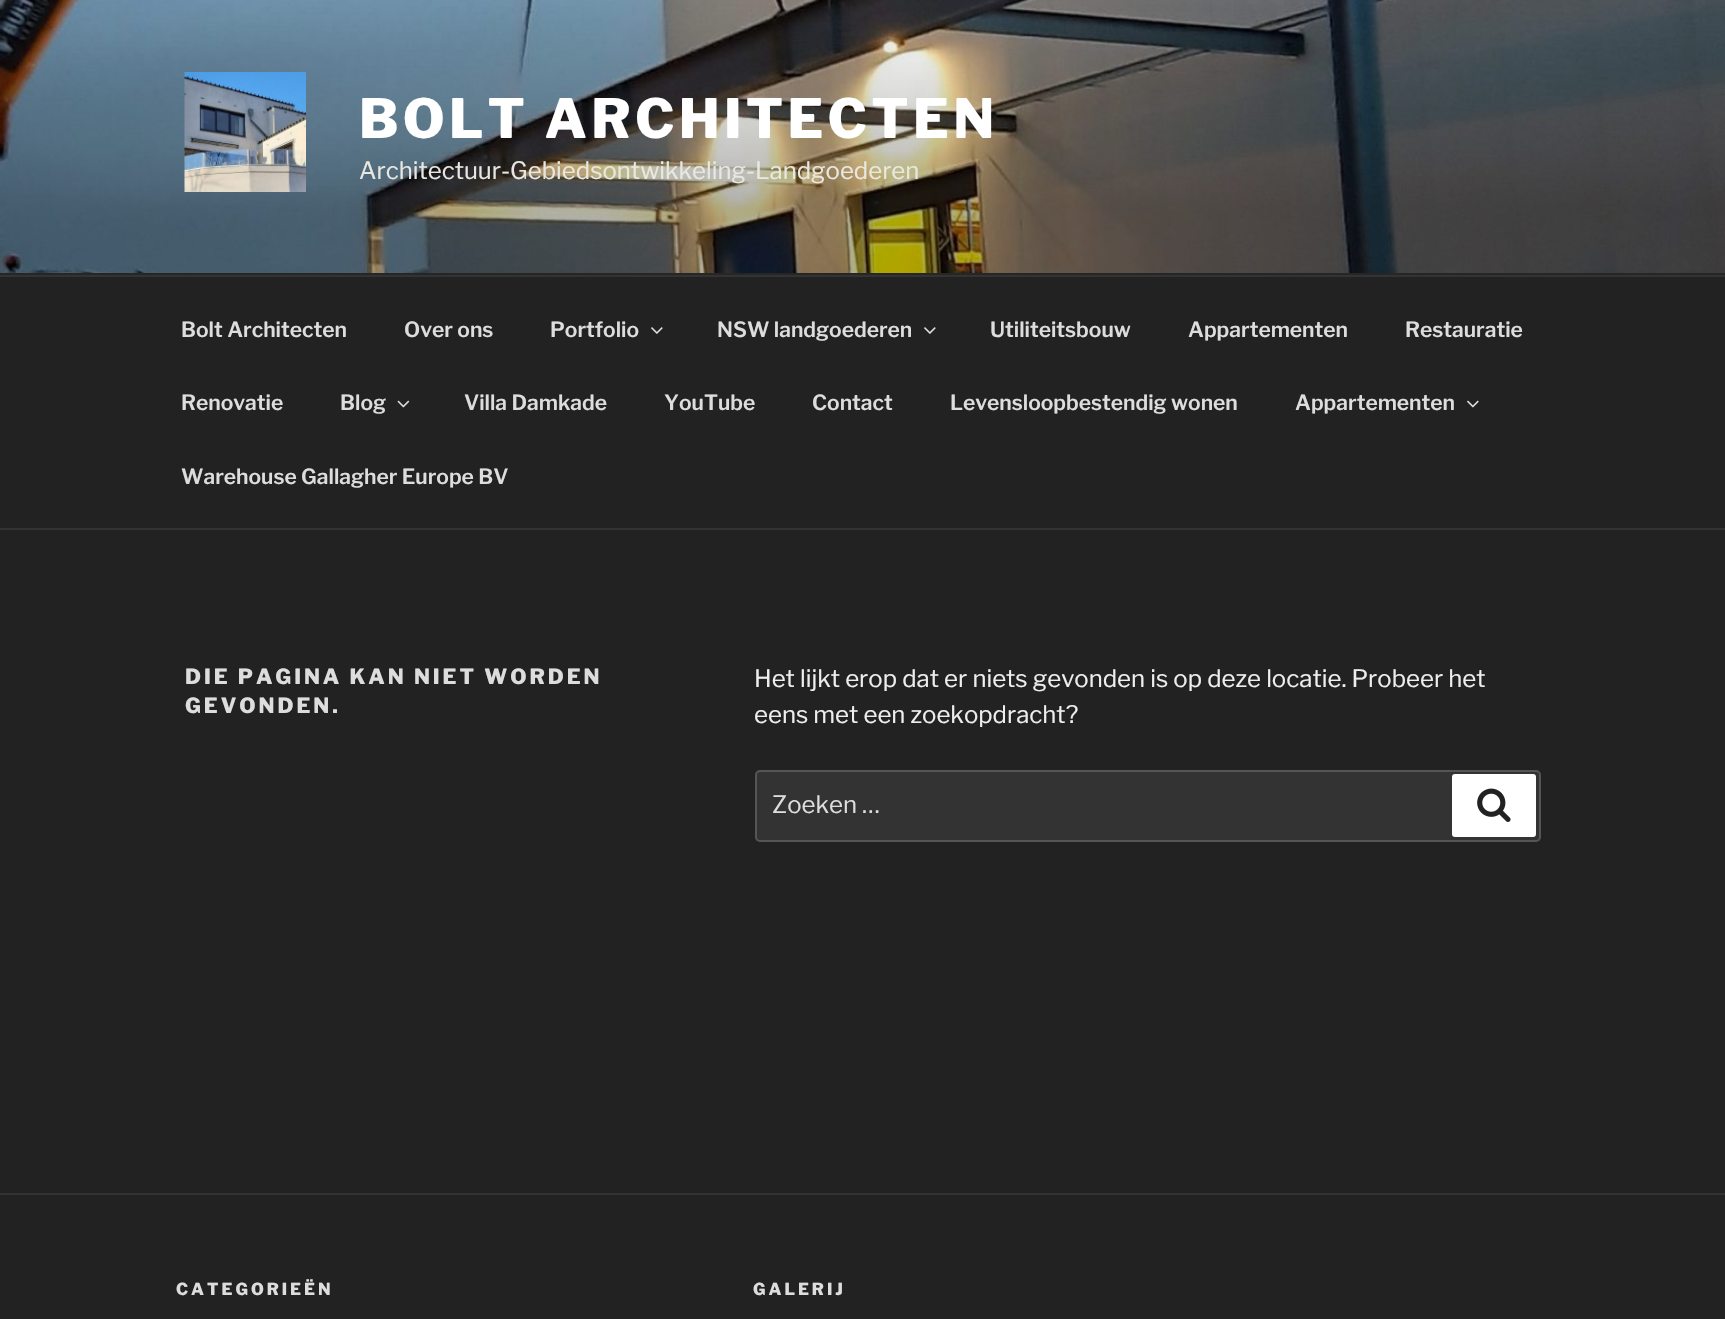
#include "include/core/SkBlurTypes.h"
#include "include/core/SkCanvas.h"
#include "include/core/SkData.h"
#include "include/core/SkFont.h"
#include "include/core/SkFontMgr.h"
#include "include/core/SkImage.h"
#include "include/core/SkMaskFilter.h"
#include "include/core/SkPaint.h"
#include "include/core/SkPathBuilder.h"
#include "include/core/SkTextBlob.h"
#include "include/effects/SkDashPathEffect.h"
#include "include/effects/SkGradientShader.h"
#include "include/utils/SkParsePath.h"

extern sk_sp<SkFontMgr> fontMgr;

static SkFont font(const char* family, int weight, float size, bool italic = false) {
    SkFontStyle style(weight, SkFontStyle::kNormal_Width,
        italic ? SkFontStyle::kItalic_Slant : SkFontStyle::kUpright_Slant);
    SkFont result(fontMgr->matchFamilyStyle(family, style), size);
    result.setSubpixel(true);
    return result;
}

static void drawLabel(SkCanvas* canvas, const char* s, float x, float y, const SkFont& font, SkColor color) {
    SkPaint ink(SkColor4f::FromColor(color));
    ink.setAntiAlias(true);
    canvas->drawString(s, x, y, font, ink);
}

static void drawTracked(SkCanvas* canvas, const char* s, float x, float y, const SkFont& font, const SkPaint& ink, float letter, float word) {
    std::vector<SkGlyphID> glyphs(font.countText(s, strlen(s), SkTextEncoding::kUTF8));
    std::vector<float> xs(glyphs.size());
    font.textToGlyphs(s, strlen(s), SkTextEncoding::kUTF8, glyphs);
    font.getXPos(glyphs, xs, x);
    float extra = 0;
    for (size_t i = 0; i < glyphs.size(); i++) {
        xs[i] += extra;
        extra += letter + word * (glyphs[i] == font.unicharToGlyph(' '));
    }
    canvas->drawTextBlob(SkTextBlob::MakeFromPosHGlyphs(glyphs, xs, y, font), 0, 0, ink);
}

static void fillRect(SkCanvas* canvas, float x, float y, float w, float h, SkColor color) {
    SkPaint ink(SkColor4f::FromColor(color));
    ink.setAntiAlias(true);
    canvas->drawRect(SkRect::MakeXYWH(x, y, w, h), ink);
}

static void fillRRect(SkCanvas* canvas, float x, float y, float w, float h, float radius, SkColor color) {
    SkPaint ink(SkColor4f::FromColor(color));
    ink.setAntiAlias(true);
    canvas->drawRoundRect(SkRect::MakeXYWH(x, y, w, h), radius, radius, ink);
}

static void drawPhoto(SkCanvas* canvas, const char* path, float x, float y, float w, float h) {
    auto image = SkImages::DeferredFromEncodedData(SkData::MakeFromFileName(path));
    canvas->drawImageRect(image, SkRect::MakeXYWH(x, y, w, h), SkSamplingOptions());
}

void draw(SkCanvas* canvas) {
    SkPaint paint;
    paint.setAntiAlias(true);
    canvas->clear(0xFF222222);
    fillRect(canvas, 0, 273, 1725, 2, 0xFF262626);
    drawPhoto(canvas, "assets/img1.png", 0, 0, 1725, 273);
    drawPhoto(canvas, "assets/img2.png", 184, 72, 122, 120);
    SkFont font1 = font("Libre Franklin", 100, 54);
    paint.setColor(0xFFFFFFFF);
    drawTracked(canvas, "BOLT ARCHITECTEN", 359, 138, font1, paint, 4.3f, 0);
    SkFont font2 = font("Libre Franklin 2", 100, 24);
    drawLabel(canvas, "Architectuur-Gebiedsontwikkeling-Landgoederen", 359, 179, font2, 0xFFE8E7E2);
    fillRect(canvas, 0, 275, 1725, 2, 0xFF333333);
    fillRect(canvas, 0, 528, 1725, 2, 0xFF333333);
    SkFont font3 = font("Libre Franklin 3", 100, 21);
    drawLabel(canvas, "Bolt Architecten", 181, 337, font3, 0xFFDDDDDD);
    drawLabel(canvas, "Over ons", 404, 337, font3, 0xFFDDDDDD);
    drawLabel(canvas, "Portfolio", 550, 337, font3, 0xFFDDDDDD);
    drawPhoto(canvas, "assets/img3.png", 651, 327, 12, 7);
    drawLabel(canvas, "NSW landgoederen", 717, 337, font3, 0xFFDDDDDD);
    drawPhoto(canvas, "assets/img3.png", 924, 327, 12, 7);
    drawLabel(canvas, "Utiliteitsbouw", 990, 337, font3, 0xFFDDDDDD);
    drawLabel(canvas, "Appartementen", 1188, 337, font3, 0xFFDDDDDD);
    drawLabel(canvas, "Restauratie", 1405, 337, font3, 0xFFDDDDDD);
    drawLabel(canvas, "Renovatie", 181, 410, font3, 0xFFDDDDDD);
    drawLabel(canvas, "Blog", 340, 410, font3, 0xFFDDDDDD);
    drawPhoto(canvas, "assets/img4.png", 397, 400, 13, 8);
    drawLabel(canvas, "Villa Damkade", 464, 410, font3, 0xFFDDDDDD);
    drawLabel(canvas, "YouTube", 664, 410, font3, 0xFFDDDDDD);
    drawLabel(canvas, "Contact", 812, 410, font3, 0xFFDDDDDD);
    drawLabel(canvas, "Levensloopbestendig wonen", 950, 410, font3, 0xFFDDDDDD);
    drawLabel(canvas, "Appartementen", 1295, 410, font3, 0xFFDDDDDD);
    drawPhoto(canvas, "assets/img5.png", 1467, 400, 12, 8);
    drawLabel(canvas, "Warehouse Gallagher Europe BV", 181, 484, font3, 0xFFDDDDDD);
    SkFont font4 = font("Libre Franklin", 100, 21);
    paint.setColor(0xFFDDDDDD);
    drawTracked(canvas, "DIE PAGINA KAN NIET WORDEN", 185, 684, font4, paint, 2.95f, 0);
    drawTracked(canvas, "GEVONDEN.", 185, 713, font4, paint, 2.95f, 0);
    drawLabel(canvas, "Het lijkt erop dat er niets gevonden is op deze locatie. Probeer het", 754, 687, font2, 0xFFEEEEEE);
    drawLabel(canvas, "eens met een zoekopdracht?", 754, 723, font2, 0xFFEEEEEE);
    paint.setColor(0xFF333333);
    canvas->drawRoundRect(SkRect::MakeXYWH(756, 771, 784, 70), 4, 4, paint);
    paint.setStroke(true);
    paint.setStrokeWidth(2);
    paint.setColor(0xFF555555);
    canvas->drawRoundRect(SkRect::MakeXYWH(756, 771, 784, 70), 4, 4, paint);
    drawLabel(canvas, "Zoeken …", 772, 813, font2, 0xFFDDDDDD);
    fillRRect(canvas, 1452, 774, 84, 63, 3, 0xFFFFFFFF);
    drawPhoto(canvas, "assets/img6.png", 1477, 788, 34, 34);
    fillRect(canvas, 0, 1193, 1725, 2, 0xFF333333);
    SkFont font5 = font("Libre Franklin", 100, 16.5f);
    paint.setStroke(false);
    paint.setColor(0xFFDDDDDD);
    drawTracked(canvas, "CATEGORIEËN", 176, 1295, font5, paint, 3, 0);
    drawTracked(canvas, "GALERIJ", 753, 1295, font5, paint, 3, 0);
}
